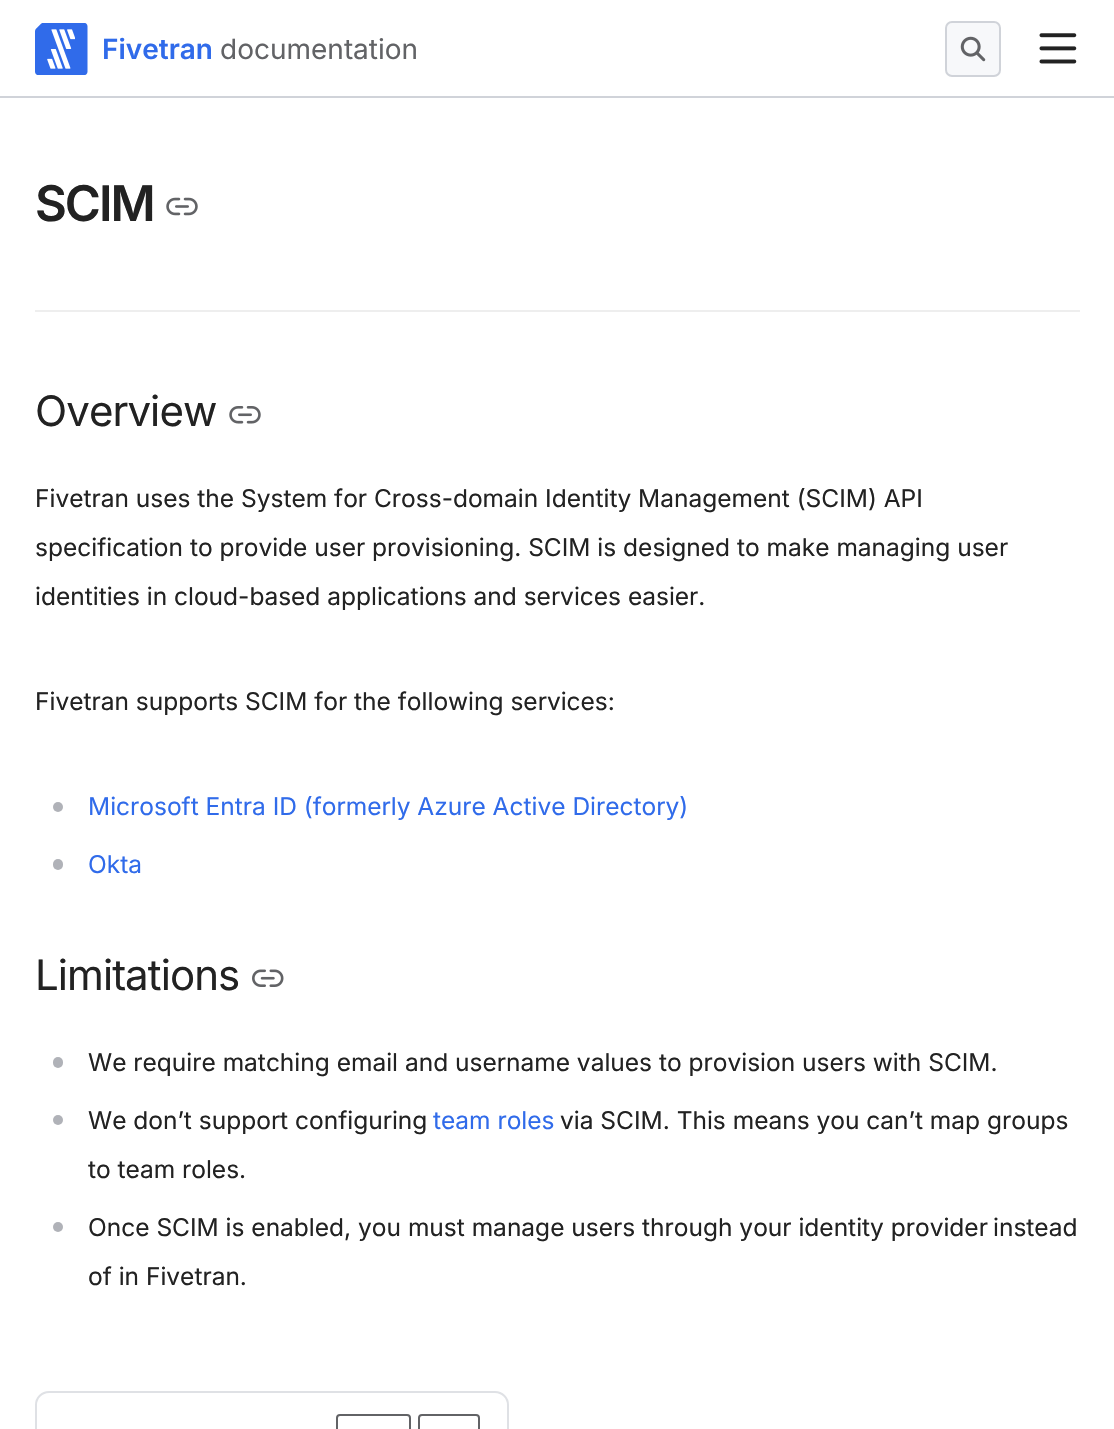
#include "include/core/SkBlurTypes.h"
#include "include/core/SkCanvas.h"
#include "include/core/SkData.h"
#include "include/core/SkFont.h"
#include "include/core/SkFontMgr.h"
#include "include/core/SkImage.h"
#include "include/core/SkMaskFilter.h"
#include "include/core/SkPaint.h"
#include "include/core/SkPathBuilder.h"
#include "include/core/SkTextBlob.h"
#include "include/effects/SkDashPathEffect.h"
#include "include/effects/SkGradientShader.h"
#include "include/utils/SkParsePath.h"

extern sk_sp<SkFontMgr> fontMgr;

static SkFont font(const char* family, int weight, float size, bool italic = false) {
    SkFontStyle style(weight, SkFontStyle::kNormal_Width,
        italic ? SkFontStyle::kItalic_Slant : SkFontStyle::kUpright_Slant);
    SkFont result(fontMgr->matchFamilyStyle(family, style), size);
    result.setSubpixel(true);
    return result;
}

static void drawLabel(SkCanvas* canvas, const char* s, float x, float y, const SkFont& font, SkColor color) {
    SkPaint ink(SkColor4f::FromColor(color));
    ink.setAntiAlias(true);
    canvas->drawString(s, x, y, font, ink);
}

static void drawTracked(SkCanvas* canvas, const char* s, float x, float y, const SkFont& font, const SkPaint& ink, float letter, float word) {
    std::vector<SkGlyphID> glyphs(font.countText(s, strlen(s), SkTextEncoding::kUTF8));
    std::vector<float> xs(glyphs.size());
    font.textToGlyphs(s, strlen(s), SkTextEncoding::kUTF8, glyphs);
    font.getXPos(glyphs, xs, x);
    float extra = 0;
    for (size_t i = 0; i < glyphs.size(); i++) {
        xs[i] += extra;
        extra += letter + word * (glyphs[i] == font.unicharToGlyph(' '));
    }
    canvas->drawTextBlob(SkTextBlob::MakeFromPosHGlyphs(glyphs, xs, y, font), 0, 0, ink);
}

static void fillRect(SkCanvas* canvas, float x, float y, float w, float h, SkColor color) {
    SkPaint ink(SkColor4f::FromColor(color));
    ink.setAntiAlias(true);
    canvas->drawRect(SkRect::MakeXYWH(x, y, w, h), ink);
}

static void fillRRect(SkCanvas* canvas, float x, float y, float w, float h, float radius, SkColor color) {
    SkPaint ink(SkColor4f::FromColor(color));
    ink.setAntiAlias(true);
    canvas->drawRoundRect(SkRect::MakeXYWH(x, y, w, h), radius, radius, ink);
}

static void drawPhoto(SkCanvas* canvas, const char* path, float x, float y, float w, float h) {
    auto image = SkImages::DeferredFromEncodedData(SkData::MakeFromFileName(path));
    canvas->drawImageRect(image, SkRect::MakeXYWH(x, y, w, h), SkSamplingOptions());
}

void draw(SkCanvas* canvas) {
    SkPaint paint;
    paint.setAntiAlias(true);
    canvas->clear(0xFFFFFFFF);
    fillRect(canvas, 0, 96, 1114, 2, 0xFFD0D3D9);
    drawPhoto(canvas, "assets/img1.png", 35, 23, 53, 52);
    SkFont font1 = font("Inter", 600, 28);
    drawLabel(canvas, "Fivetran", 102, 59, font1, 0xFF306BEA);
    SkFont font2 = font("Inter", 400, 28);
    drawLabel(canvas, "documentation", 220, 59, font2, 0xFF626366);
    paint.setColor(0xFFF7F8FA);
    canvas->drawRoundRect(SkRect::MakeXYWH(946, 22, 54, 54), 6, 6, paint);
    paint.setStroke(true);
    paint.setStrokeWidth(2);
    paint.setColor(0xFFD0D3D9);
    canvas->drawRoundRect(SkRect::MakeXYWH(946, 22, 54, 54), 6, 6, paint);
    drawPhoto(canvas, "assets/img2.png", 960, 36, 26, 26);
    drawPhoto(canvas, "assets/img3.png", 1039, 33, 38, 31);
    SkFont font3 = font("Inter", 600, 49);
    paint.setStroke(false);
    paint.setColor(0xFF222222);
    drawTracked(canvas, "SCIM", 35, 221, font3, paint, -2, 0);
    drawPhoto(canvas, "assets/img4.png", 166, 197, 32, 19);
    fillRect(canvas, 35, 310, 1045, 2, 0xFFEEEEEE);
    SkFont font4 = font("Inter", 400, 42);
    drawTracked(canvas, "Overview", 35, 426, font4, paint, -0.9f, 0);
    drawPhoto(canvas, "assets/img5.png", 229, 406, 32, 18);
    SkFont font5 = font("Inter", 400, 24.5f);
    drawLabel(canvas, "Fivetran uses the System for Cross-domain Identity Management (SCIM) API", 35, 507, font5, 0xFF222222);
    drawLabel(canvas, "specification to provide user provisioning. SCIM is designed to make managing user", 35, 556, font5, 0xFF222222);
    drawLabel(canvas, "identities in cloud-based applications and services easier.", 35, 605, font5, 0xFF222222);
    drawLabel(canvas, "Fivetran supports SCIM for the following services:", 35, 710, font5, 0xFF222222);
    paint.setColor(0xFFB0B2B8);
    canvas->drawCircle(58, 807, 5, paint);
    drawLabel(canvas, "Microsoft Entra ID (formerly Azure Active Directory)", 88, 815, font5, 0xFF306BEA);
    fillRRect(canvas, 53, 859, 10, 11, 5, 0xFFB0B2B8);
    drawLabel(canvas, "Okta", 88, 873, font5, 0xFF306BEA);
    paint.setColor(0xFF222222);
    drawTracked(canvas, "Limitations", 35, 990, font4, paint, -0.9f, 0);
    drawPhoto(canvas, "assets/img6.png", 252, 969, 32, 18);
    fillRRect(canvas, 53, 1057, 10, 11, 5, 0xFFB0B2B8);
    drawLabel(canvas, "We require matching email and username values to provision users with SCIM.", 88, 1071, font5, 0xFF222222);
    paint.setColor(0xFFB0B2B8);
    canvas->drawCircle(58, 1120, 5, paint);
    drawLabel(canvas, "We don’t support configuring", 88, 1129, font5, 0xFF222222);
    drawLabel(canvas, "team roles", 433, 1129, font5, 0xFF306BEA);
    drawLabel(canvas, "via SCIM. This means you can’t map groups", 560, 1129, font5, 0xFF222222);
    drawLabel(canvas, "to team roles.", 88, 1178, font5, 0xFF222222);
    canvas->drawCircle(58, 1227, 5, paint);
    drawLabel(canvas, "Once SCIM is enabled, you must manage users through your identity provider", 88, 1236, font5, 0xFF222222);
    drawLabel(canvas, "instead", 993, 1236, font5, 0xFF222222);
    drawLabel(canvas, "of in Fivetran.", 88, 1285, font5, 0xFF222222);
    paint.setStroke(true);
    paint.setColor(0xFFDFE1E5);
    canvas->drawRoundRect(SkRect::MakeXYWH(36, 1392, 472, 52), 13, 13, paint);
    paint.setColor(0xFF626366);
    canvas->drawRoundRect(SkRect::MakeXYWH(337, 1415, 73, 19), 3, 3, paint);
    canvas->drawRoundRect(SkRect::MakeXYWH(419, 1415, 60, 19), 3, 3, paint);
}
